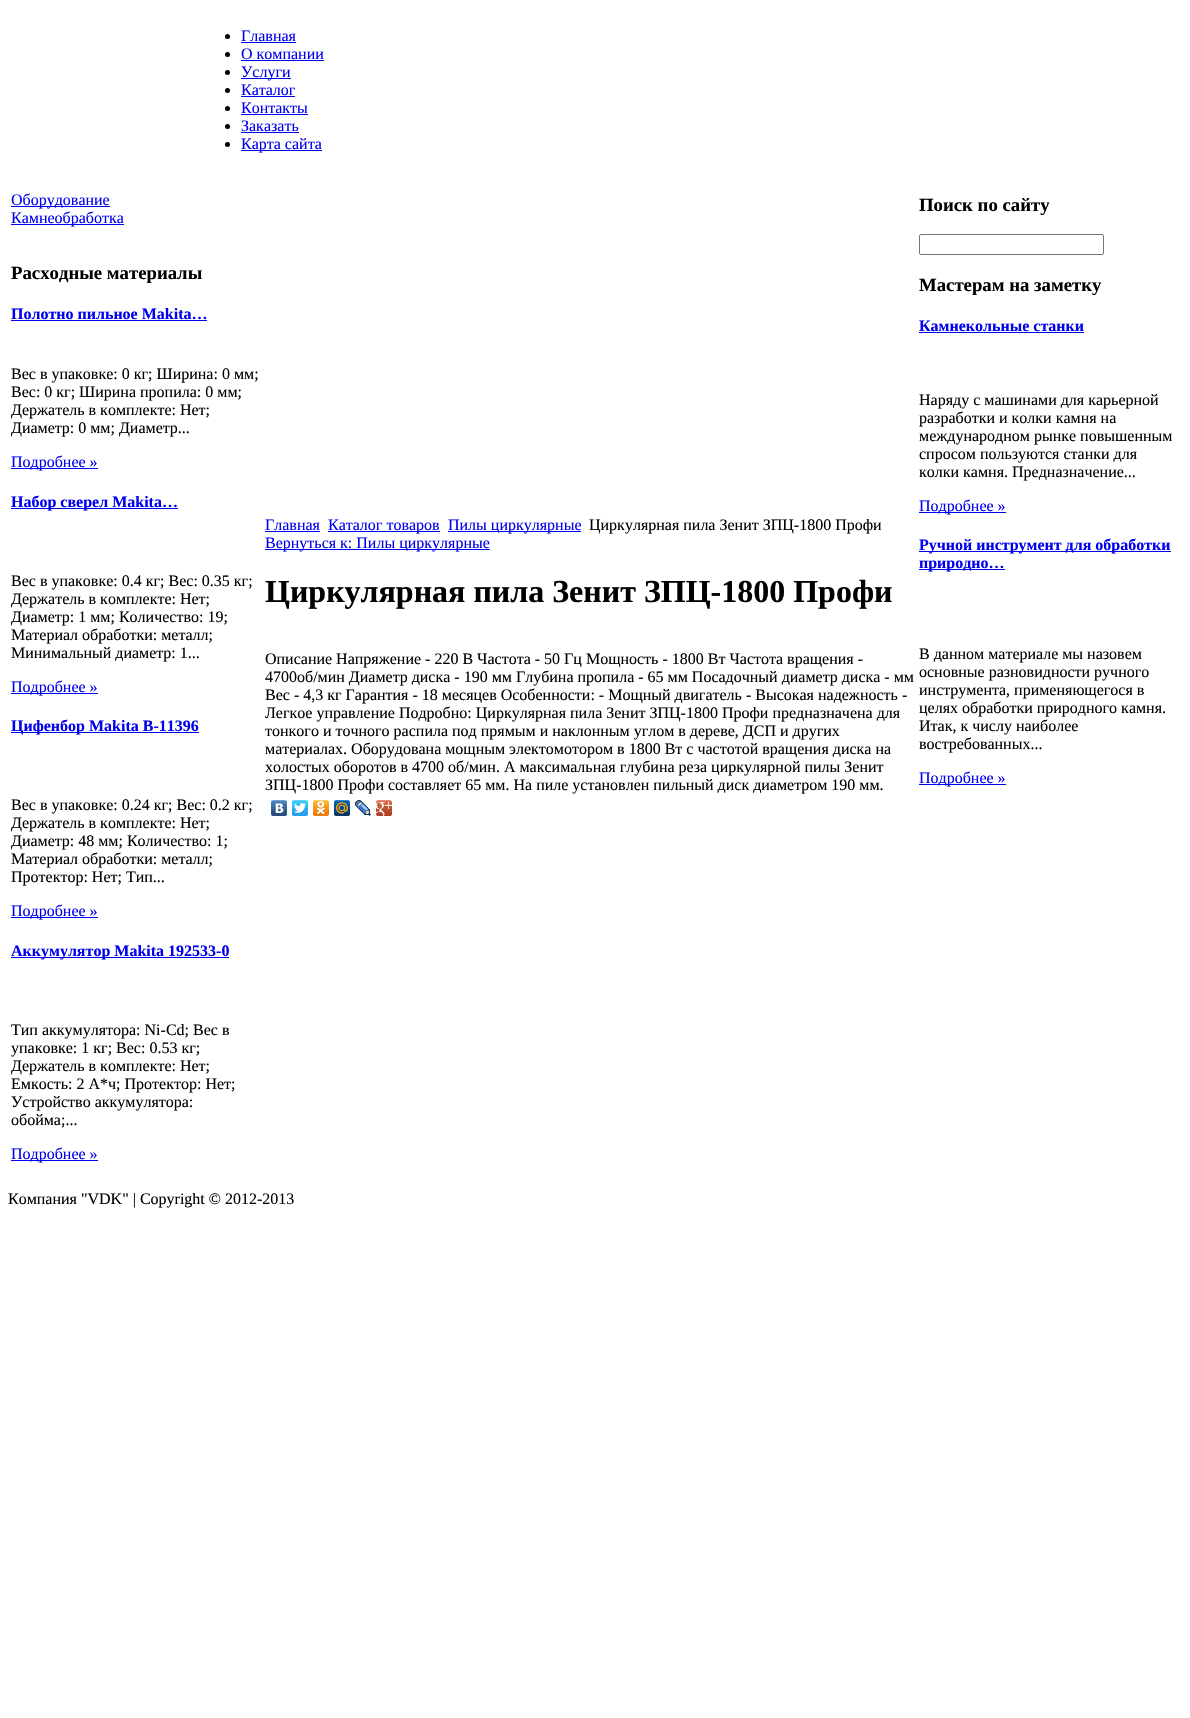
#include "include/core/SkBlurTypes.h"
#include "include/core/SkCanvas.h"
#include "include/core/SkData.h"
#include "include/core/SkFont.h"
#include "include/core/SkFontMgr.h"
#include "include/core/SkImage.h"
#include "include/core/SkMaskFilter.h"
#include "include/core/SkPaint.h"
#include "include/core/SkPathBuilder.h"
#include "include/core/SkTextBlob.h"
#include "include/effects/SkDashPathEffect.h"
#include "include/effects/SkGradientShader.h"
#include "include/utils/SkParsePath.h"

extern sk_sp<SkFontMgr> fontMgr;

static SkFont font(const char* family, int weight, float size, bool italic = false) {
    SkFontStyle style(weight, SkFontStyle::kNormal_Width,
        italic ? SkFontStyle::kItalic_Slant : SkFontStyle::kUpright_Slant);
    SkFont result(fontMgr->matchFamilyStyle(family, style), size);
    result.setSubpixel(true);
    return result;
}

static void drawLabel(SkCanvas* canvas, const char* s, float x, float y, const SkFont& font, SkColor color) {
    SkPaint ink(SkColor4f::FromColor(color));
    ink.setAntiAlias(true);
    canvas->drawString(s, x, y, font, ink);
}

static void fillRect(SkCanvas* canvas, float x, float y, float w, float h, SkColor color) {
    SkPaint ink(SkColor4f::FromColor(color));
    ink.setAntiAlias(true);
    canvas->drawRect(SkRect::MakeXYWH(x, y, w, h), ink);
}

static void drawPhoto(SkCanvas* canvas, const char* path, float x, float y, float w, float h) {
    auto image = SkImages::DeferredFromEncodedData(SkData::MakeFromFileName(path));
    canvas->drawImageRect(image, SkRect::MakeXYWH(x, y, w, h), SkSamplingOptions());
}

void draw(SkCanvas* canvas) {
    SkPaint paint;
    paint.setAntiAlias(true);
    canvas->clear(0xFFFFFFFF);
    paint.setColor(0xFF000000);
    canvas->drawCircle(227.5f, 36.5f, 2.5f, paint);
    SkFont font1 = font("Liberation Serif", 400, 16);
    drawLabel(canvas, "Главная", 241, 41, font1, 0xFF0000EE);
    fillRect(canvas, 241, 42, 55, 1, 0xFF0000EE);
    canvas->drawCircle(227.5f, 54.5f, 2.5f, paint);
    drawLabel(canvas, "О компании", 241, 59, font1, 0xFF0000EE);
    fillRect(canvas, 241, 60, 83, 1, 0xFF0000EE);
    canvas->drawCircle(227.5f, 72.5f, 2.5f, paint);
    fillRect(canvas, 241, 78, 50, 1, 0xFF0000EE);
    drawLabel(canvas, "Услуги", 241, 77, font1, 0xFF0000EE);
    canvas->drawCircle(227.5f, 90.5f, 2.5f, paint);
    drawLabel(canvas, "Каталог", 241, 95, font1, 0xFF0000EE);
    fillRect(canvas, 241, 96, 54, 1, 0xFF0000EE);
    canvas->drawCircle(227.5f, 108.5f, 2.5f, paint);
    drawLabel(canvas, "Контакты", 241, 113, font1, 0xFF0000EE);
    fillRect(canvas, 241, 114, 67, 1, 0xFF0000EE);
    canvas->drawCircle(227.5f, 126.5f, 2.5f, paint);
    drawLabel(canvas, "Заказать", 241, 131, font1, 0xFF0000EE);
    fillRect(canvas, 241, 132, 58, 1, 0xFF0000EE);
    canvas->drawCircle(227.5f, 144.5f, 2.5f, paint);
    fillRect(canvas, 241, 150, 81, 1, 0xFF0000EE);
    drawLabel(canvas, "Карта сайта", 241, 149, font1, 0xFF0000EE);
    fillRect(canvas, 11, 206, 99, 1, 0xFF0000EE);
    drawLabel(canvas, "Оборудование", 11, 205, font1, 0xFF0000EE);
    fillRect(canvas, 11, 224, 113, 1, 0xFF0000EE);
    drawLabel(canvas, "Камнеобработка", 11, 223, font1, 0xFF0000EE);
    SkFont font2 = font("Liberation Serif", 700, 18.75f);
    drawLabel(canvas, "Расходные материалы", 11, 279, font2, 0xFF000000);
    SkFont font3 = font("Liberation Serif", 700, 16);
    drawLabel(canvas, "Полотно пильное Makita…", 11, 319, font3, 0xFF0000EE);
    fillRect(canvas, 11, 320, 196, 1, 0xFF0000EE);
    drawLabel(canvas, "Вес в упаковке: 0 кг; Ширина: 0 мм;", 11, 379, font1, 0xFF000000);
    drawLabel(canvas, "Вес: 0 кг; Ширина пропила: 0 мм;", 11, 397, font1, 0xFF000000);
    drawLabel(canvas, "Держатель в комплекте: Нет;", 11, 415, font1, 0xFF000000);
    drawLabel(canvas, "Диаметр: 0 мм; Диаметр...", 11, 433, font1, 0xFF000000);
    fillRect(canvas, 11, 468, 87, 1, 0xFF0000EE);
    drawLabel(canvas, "Подробнее »", 11, 467, font1, 0xFF0000EE);
    fillRect(canvas, 11, 508, 167, 1, 0xFF0000EE);
    drawLabel(canvas, "Набор сверел Makita…", 11, 507, font3, 0xFF0000EE);
    drawLabel(canvas, "Вес в упаковке: 0.4 кг; Вес: 0.35 кг;", 11, 586, font1, 0xFF000000);
    drawLabel(canvas, "Держатель в комплекте: Нет;", 11, 604, font1, 0xFF000000);
    drawLabel(canvas, "Диаметр: 1 мм; Количество: 19;", 11, 622, font1, 0xFF000000);
    drawLabel(canvas, "Материал обработки: металл;", 11, 640, font1, 0xFF000000);
    drawLabel(canvas, "Минимальный диаметр: 1...", 11, 658, font1, 0xFF000000);
    fillRect(canvas, 11, 693, 87, 1, 0xFF0000EE);
    drawLabel(canvas, "Подробнее »", 11, 692, font1, 0xFF0000EE);
    fillRect(canvas, 11, 732, 188, 1, 0xFF0000EE);
    drawLabel(canvas, "Цифенбор Makita B-11396", 11, 731, font3, 0xFF0000EE);
    drawLabel(canvas, "Вес в упаковке: 0.24 кг; Вес: 0.2 кг;", 11, 810, font1, 0xFF000000);
    drawLabel(canvas, "Держатель в комплекте: Нет;", 11, 828, font1, 0xFF000000);
    drawLabel(canvas, "Диаметр: 48 мм; Количество: 1;", 11, 846, font1, 0xFF000000);
    drawLabel(canvas, "Материал обработки: металл;", 11, 864, font1, 0xFF000000);
    drawLabel(canvas, "Протектор: Нет; Тип...", 11, 882, font1, 0xFF000000);
    fillRect(canvas, 11, 917, 87, 1, 0xFF0000EE);
    drawLabel(canvas, "Подробнее »", 11, 916, font1, 0xFF0000EE);
    fillRect(canvas, 11, 957, 218, 1, 0xFF0000EE);
    drawLabel(canvas, "Аккумулятор Makita 192533-0", 11, 956, font3, 0xFF0000EE);
    drawLabel(canvas, "Тип аккумулятора: Ni-Cd; Вес в", 11, 1035, font1, 0xFF000000);
    drawLabel(canvas, "упаковке: 1 кг; Вес: 0.53 кг;", 11, 1053, font1, 0xFF000000);
    drawLabel(canvas, "Держатель в комплекте: Нет;", 11, 1071, font1, 0xFF000000);
    drawLabel(canvas, "Емкость: 2 А*ч; Протектор: Нет;", 11, 1089, font1, 0xFF000000);
    drawLabel(canvas, "Устройство аккумулятора:", 11, 1107, font1, 0xFF000000);
    drawLabel(canvas, "обойма;...", 11, 1125, font1, 0xFF000000);
    fillRect(canvas, 11, 1160, 87, 1, 0xFF0000EE);
    drawLabel(canvas, "Подробнее »", 11, 1159, font1, 0xFF0000EE);
    drawLabel(canvas, "Главная", 265, 530, font1, 0xFF0000EE);
    fillRect(canvas, 265, 531, 55, 1, 0xFF0000EE);
    fillRect(canvas, 328, 531, 112, 1, 0xFF0000EE);
    drawLabel(canvas, "Каталог товаров", 328, 530, font1, 0xFF0000EE);
    fillRect(canvas, 448, 531, 133, 1, 0xFF0000EE);
    drawLabel(canvas, "Пилы циркулярные", 448, 530, font1, 0xFF0000EE);
    drawLabel(canvas, "Циркулярная пила Зенит ЗПЦ-1800 Профи", 589, 530, font1, 0xFF000000);
    fillRect(canvas, 265, 549, 225, 1, 0xFF0000EE);
    drawLabel(canvas, "Вернуться к: Пилы циркулярные", 265, 548, font1, 0xFF0000EE);
    SkFont font4 = font("Liberation Serif", 700, 32);
    drawLabel(canvas, "Циркулярная пила Зенит ЗПЦ-1800 Профи", 265, 602, font4, 0xFF000000);
    drawLabel(canvas, "Описание Напряжение - 220 В Частота - 50 Гц Мощность - 1800 Вт Частота вращения -", 265, 664, font1, 0xFF000000);
    drawLabel(canvas, "4700об/мин Диаметр диска - 190 мм Глубина пропила - 65 мм Посадочный диаметр диска - мм", 265, 682, font1, 0xFF000000);
    drawLabel(canvas, "Вес - 4,3 кг Гарантия - 18 месяцев Особенности: - Мощный двигатель - Высокая надежность -", 265, 700, font1, 0xFF000000);
    drawLabel(canvas, "Легкое управление Подробно: Циркулярная пила Зенит ЗПЦ-1800 Профи предназначена для", 265, 718, font1, 0xFF000000);
    drawLabel(canvas, "тонкого и точного распила под прямым и наклонным углом в дереве, ДСП и других", 265, 736, font1, 0xFF000000);
    drawLabel(canvas, "материалах. Оборудована мощным электомотором в 1800 Вт с частотой вращения диска на", 265, 754, font1, 0xFF000000);
    drawLabel(canvas, "холостых оборотов в 4700 об/мин. А максимальная глубина реза циркулярной пилы Зенит", 265, 772, font1, 0xFF000000);
    drawLabel(canvas, "ЗПЦ-1800 Профи составляет 65 мм. На пиле установлен пильный диск диаметром 190 мм.", 265, 790, font1, 0xFF000000);
    drawPhoto(canvas, "assets/img1.png", 271, 800, 16, 16);
    drawPhoto(canvas, "assets/img2.png", 292, 800, 16, 16);
    drawPhoto(canvas, "assets/img3.png", 313, 800, 16, 16);
    drawPhoto(canvas, "assets/img4.png", 334, 800, 16, 16);
    drawPhoto(canvas, "assets/img5.png", 355, 800, 16, 16);
    drawPhoto(canvas, "assets/img6.png", 376, 800, 16, 16);
    drawLabel(canvas, "Поиск по сайту", 919, 211, font2, 0xFF000000);
    paint.setStroke(true);
    paint.setStrokeWidth(1);
    paint.setColor(0xFF767676);
    canvas->drawRoundRect(SkRect::MakeXYWH(919.5f, 234.5f, 184, 20), 1.5f, 1.5f, paint);
    drawLabel(canvas, "Мастерам на заметку", 919, 291, font2, 0xFF000000);
    drawLabel(canvas, "Камнекольные станки", 919, 331, font3, 0xFF0000EE);
    fillRect(canvas, 919, 332, 165, 1, 0xFF0000EE);
    drawLabel(canvas, "Наряду с машинами для карьерной", 919, 405, font1, 0xFF000000);
    drawLabel(canvas, "разработки и колки камня на", 919, 423, font1, 0xFF000000);
    drawLabel(canvas, "международном рынке повышенным", 919, 441, font1, 0xFF000000);
    drawLabel(canvas, "спросом пользуются станки для", 919, 459, font1, 0xFF000000);
    drawLabel(canvas, "колки камня. Предназначение...", 919, 477, font1, 0xFF000000);
    fillRect(canvas, 919, 512, 87, 1, 0xFF0000EE);
    drawLabel(canvas, "Подробнее »", 919, 511, font1, 0xFF0000EE);
    fillRect(canvas, 919, 551, 252, 1, 0xFF0000EE);
    drawLabel(canvas, "Ручной инструмент для обработки", 919, 550, font3, 0xFF0000EE);
    fillRect(canvas, 919, 569, 86, 1, 0xFF0000EE);
    drawLabel(canvas, "природно…", 919, 568, font3, 0xFF0000EE);
    drawLabel(canvas, "В данном материале мы назовем", 919, 659, font1, 0xFF000000);
    drawLabel(canvas, "основные разновидности ручного", 919, 677, font1, 0xFF000000);
    drawLabel(canvas, "инструмента, применяющегося в", 919, 695, font1, 0xFF000000);
    drawLabel(canvas, "целях обработки природного камня.", 919, 713, font1, 0xFF000000);
    drawLabel(canvas, "Итак, к числу наиболее", 919, 731, font1, 0xFF000000);
    drawLabel(canvas, "востребованных...", 919, 749, font1, 0xFF000000);
    fillRect(canvas, 919, 784, 87, 1, 0xFF0000EE);
    drawLabel(canvas, "Подробнее »", 919, 783, font1, 0xFF0000EE);
    drawLabel(canvas, "Компания \"VDK\" | Copyright © 2012-2013", 8, 1204, font1, 0xFF000000);
}
